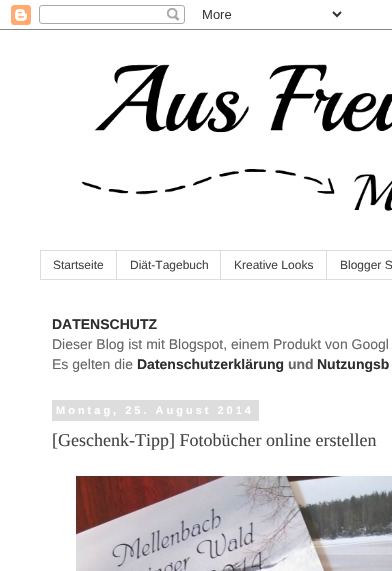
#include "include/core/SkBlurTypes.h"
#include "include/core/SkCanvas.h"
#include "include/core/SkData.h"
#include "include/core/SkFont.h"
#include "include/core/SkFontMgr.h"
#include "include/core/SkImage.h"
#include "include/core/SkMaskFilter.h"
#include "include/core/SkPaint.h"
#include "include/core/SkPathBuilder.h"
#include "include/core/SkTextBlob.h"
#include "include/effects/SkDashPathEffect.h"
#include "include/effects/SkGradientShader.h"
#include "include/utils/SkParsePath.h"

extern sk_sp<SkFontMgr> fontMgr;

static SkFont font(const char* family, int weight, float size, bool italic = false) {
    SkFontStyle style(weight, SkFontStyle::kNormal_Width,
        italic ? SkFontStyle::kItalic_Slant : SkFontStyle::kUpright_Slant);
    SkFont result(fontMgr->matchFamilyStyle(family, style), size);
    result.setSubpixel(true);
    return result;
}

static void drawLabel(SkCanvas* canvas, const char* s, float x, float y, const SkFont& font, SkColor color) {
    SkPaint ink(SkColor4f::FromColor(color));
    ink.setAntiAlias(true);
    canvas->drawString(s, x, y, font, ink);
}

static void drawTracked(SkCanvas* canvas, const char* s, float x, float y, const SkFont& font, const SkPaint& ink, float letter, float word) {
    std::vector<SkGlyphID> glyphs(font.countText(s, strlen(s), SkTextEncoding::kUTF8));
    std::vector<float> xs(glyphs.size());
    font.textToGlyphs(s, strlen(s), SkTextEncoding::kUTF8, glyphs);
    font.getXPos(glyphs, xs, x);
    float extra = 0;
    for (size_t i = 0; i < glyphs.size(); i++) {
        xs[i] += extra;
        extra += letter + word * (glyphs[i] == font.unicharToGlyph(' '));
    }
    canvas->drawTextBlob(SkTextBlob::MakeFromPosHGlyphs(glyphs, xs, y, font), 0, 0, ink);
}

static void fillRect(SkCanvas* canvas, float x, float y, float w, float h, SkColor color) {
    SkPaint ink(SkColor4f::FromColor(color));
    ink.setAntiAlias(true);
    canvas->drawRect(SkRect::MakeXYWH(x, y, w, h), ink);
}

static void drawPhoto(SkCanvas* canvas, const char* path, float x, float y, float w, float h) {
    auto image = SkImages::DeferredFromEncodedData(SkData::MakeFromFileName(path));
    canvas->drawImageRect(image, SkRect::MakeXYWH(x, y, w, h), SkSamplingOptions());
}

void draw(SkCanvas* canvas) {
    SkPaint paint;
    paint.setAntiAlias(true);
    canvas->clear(0xFFFFFFFF);
    drawPhoto(canvas, "assets/img1.png", 0, 5, 392, 25);
    drawPhoto(canvas, "assets/img2.png", 81, 64, 311, 147);
    paint.setStroke(true);
    paint.setStrokeWidth(1);
    paint.setColor(0xFFDDDDDD);
    canvas->drawRect(SkRect::MakeXYWH(40.5f, 250.5f, 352, 29), paint);
    fillRect(canvas, 116, 251, 1, 28, 0xFFDDDDDD);
    SkFont font1 = font("Liberation Sans", 400, 12);
    drawLabel(canvas, "Startseite", 53, 269, font1, 0xFF444444);
    fillRect(canvas, 220, 251, 1, 28, 0xFFDDDDDD);
    drawLabel(canvas, "Diät-Tagebuch", 130, 269, font1, 0xFF444444);
    fillRect(canvas, 326, 251, 1, 28, 0xFFDDDDDD);
    drawLabel(canvas, "Kreative Looks", 234, 269, font1, 0xFF444444);
    drawLabel(canvas, "Blogger S", 340, 269, font1, 0xFF444444);
    SkFont font2 = font("Liberation Sans", 700, 14);
    drawLabel(canvas, "DATENSCHUTZ", 52, 329, font2, 0xFF2F2F2F);
    SkFont font3 = font("Liberation Sans", 400, 14);
    drawLabel(canvas, "Dieser Blog ist mit Blogspot, einem Produkt von Googl", 52, 349, font3, 0xFF666666);
    drawLabel(canvas, "Es gelten die", 52, 369, font3, 0xFF666666);
    drawLabel(canvas, "Datenschutzerklärung", 137, 369, font2, 0xFF2F2F2F);
    drawLabel(canvas, "und", 288, 369, font2, 0xFF666666);
    drawLabel(canvas, "Nutzungsb", 317, 369, font2, 0xFF2F2F2F);
    fillRect(canvas, 52, 400, 207, 21, 0xFFDDDDDD);
    SkFont font4 = font("Liberation Sans", 700, 11);
    paint.setStroke(false);
    paint.setColor(0xFFFFFFFF);
    drawTracked(canvas, "Montag, 25. August 2014", 56, 414, font4, paint, 3, 0);
    SkFont font5 = font("Liberation Serif", 400, 18);
    drawLabel(canvas, "[Geschenk-Tipp] Fotobücher online erstellen", 52, 446, font5, 0xFF444444);
    drawPhoto(canvas, "assets/img3.png", 72, 472, 320, 99);
}
